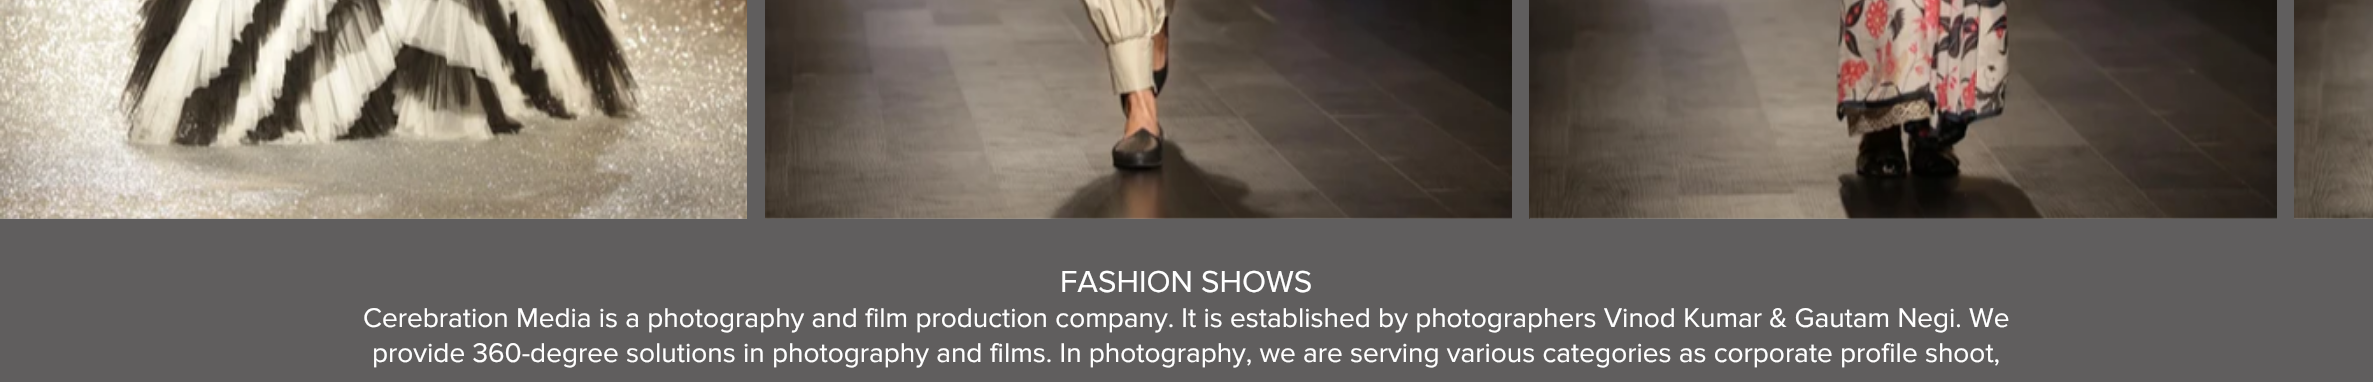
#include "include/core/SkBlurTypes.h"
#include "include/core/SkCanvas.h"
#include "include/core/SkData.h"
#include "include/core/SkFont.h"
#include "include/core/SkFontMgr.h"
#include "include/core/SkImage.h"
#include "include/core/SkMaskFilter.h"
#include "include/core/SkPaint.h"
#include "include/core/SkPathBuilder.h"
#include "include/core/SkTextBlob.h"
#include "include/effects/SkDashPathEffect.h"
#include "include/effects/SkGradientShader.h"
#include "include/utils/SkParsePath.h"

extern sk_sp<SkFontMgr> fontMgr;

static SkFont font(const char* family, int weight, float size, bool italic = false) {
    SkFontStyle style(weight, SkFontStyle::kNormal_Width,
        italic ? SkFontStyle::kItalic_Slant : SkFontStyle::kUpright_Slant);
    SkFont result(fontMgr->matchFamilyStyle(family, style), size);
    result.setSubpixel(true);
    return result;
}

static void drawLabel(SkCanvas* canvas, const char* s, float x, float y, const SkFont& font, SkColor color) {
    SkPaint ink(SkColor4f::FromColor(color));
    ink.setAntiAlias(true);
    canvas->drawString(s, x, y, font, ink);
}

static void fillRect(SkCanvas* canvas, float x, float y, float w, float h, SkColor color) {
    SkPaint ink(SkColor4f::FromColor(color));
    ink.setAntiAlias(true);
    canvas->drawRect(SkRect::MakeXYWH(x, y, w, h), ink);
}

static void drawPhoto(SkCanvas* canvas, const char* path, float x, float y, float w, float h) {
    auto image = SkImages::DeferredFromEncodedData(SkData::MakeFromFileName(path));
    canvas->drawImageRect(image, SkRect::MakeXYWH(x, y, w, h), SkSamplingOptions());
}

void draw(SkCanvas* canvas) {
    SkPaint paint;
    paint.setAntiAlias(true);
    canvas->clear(0xFF605E5E);
    fillRect(canvas, 0, 217, 747, 2, 0xFFA0A09F);
    drawPhoto(canvas, "assets/img1.png", 0, 0, 747, 219);
    fillRect(canvas, 765, 217, 747, 2, 0xFFA0A09F);
    drawPhoto(canvas, "assets/img2.png", 765, 0, 747, 219);
    fillRect(canvas, 1530, 217, 747, 2, 0xFFA0A09F);
    drawPhoto(canvas, "assets/img3.png", 1529, 0, 748, 219);
    fillRect(canvas, 2294, 217, 79, 2, 0xFFA0A09F);
    drawPhoto(canvas, "assets/img4.png", 2294, 0, 79, 219);
    SkFont font1 = font("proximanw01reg", 400, 31.5f);
    drawLabel(canvas, "FASHION SHOWS", 1060, 292, font1, 0xFFFFFFFF);
    SkFont font2 = font("proximanw01reg", 400, 28);
    drawLabel(canvas, "Cerebration Media is a photography and film production company. It is established by photographers Vinod Kumar & Gautam Negi. We", 363, 327, font2, 0xFFFFFFFF);
    drawLabel(canvas, "provide 360-degree solutions in photography and films. In photography, we are serving various categories as corporate profile shoot,", 372, 362, font2, 0xFFFFFFFF);
}
